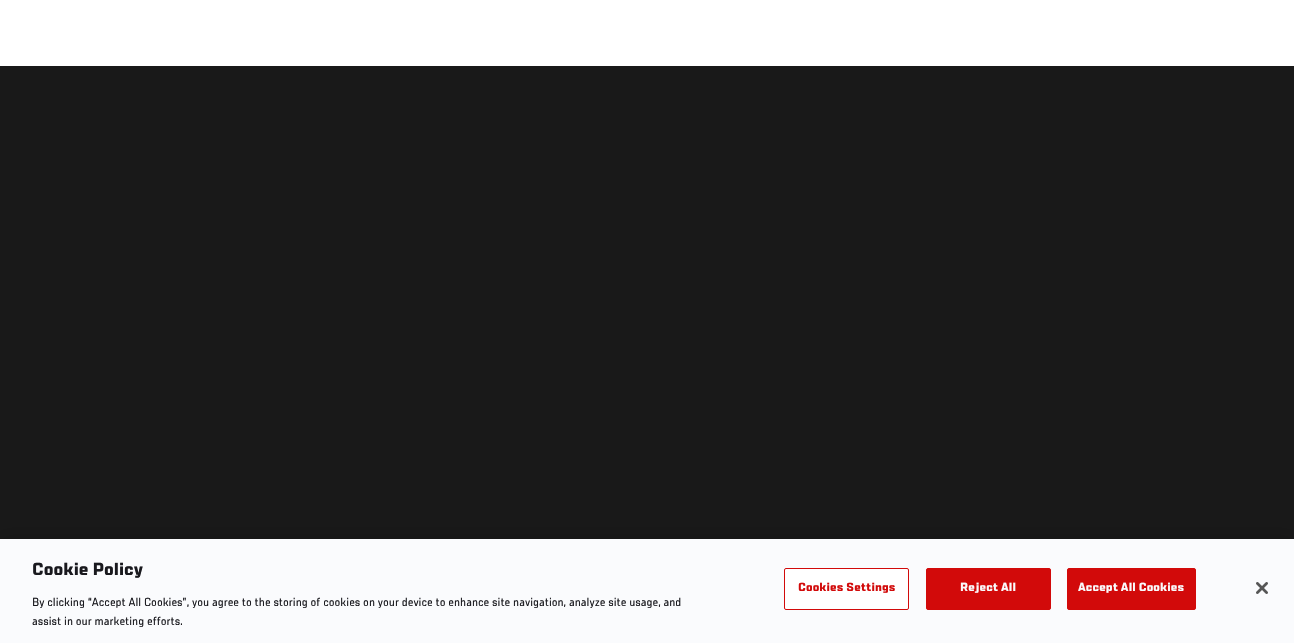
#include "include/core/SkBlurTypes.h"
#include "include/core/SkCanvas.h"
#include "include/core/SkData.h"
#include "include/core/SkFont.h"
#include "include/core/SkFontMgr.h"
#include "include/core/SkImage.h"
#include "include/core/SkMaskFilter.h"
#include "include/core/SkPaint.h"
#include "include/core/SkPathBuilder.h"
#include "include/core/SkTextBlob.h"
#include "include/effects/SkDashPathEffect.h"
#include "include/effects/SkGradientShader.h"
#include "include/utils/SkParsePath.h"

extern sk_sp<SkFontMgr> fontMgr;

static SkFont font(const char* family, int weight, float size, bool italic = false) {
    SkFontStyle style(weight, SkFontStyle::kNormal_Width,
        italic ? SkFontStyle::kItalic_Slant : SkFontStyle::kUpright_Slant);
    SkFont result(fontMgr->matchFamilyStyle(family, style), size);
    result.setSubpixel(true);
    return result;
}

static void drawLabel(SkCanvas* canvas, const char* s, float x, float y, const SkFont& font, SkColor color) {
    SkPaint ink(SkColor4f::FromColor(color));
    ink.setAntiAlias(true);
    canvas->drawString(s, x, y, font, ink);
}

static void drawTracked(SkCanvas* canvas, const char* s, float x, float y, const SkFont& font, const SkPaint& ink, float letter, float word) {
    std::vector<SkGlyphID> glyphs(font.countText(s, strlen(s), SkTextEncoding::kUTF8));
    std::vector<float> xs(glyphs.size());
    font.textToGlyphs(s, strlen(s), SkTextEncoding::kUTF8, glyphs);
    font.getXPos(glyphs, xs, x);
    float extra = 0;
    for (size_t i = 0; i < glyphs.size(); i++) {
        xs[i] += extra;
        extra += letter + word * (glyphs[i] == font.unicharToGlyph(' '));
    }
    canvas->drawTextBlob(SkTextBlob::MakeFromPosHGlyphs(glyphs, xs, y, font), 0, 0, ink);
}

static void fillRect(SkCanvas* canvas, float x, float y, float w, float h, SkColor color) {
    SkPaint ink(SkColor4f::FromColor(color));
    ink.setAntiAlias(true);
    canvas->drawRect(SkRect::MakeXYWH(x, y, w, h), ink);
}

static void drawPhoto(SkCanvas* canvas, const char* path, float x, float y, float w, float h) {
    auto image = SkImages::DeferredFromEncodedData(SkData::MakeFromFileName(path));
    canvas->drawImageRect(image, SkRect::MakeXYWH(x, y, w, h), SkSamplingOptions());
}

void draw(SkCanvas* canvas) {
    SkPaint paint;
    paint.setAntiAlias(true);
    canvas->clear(0xFFFFFFFF);
    fillRect(canvas, 0, 66, 1294, 473, 0xFF191919);
    paint.setColor(0x33000000);
    paint.setMaskFilter(SkMaskFilter::MakeBlur(kNormal_SkBlurStyle, 9));
    canvas->drawRect(SkRect::MakeXYWH(0, 539, 1294, 104), paint);
    paint.setMaskFilter(nullptr);
    fillRect(canvas, 0, 539, 1294, 104, 0xFFFAFBFD);
    SkFont font1 = font("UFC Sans", 700, 19.25f);
    drawLabel(canvas, "Cookie Policy", 32, 575, font1, 0xFF19191E);
    SkFont font2 = font("UFC Sans", 400, 13);
    drawLabel(canvas, "By clicking “Accept All Cookies”, you agree to the storing of cookies on your device to enhance site navigation, analyze site usage, and", 32, 606, font2, 0xFF19191E);
    drawLabel(canvas, "assist in our marketing efforts.", 32, 625, font2, 0xFF19191E);
    paint.setColor(0xFFFFFFFF);
    canvas->drawRoundRect(SkRect::MakeXYWH(784.5f, 568.5f, 124, 41), 1.5f, 1.5f, paint);
    paint.setStroke(true);
    paint.setStrokeWidth(1);
    paint.setColor(0xFFD20A0A);
    canvas->drawRoundRect(SkRect::MakeXYWH(784.5f, 568.5f, 124, 41), 1.5f, 1.5f, paint);
    SkFont font3 = font("UFC Sans", 700, 13);
    paint.setStroke(false);
    drawTracked(canvas, "Cookies Settings", 798, 591, font3, paint, 0.1f, 0);
    canvas->drawRoundRect(SkRect::MakeXYWH(926.5f, 568.5f, 124, 41), 1.5f, 1.5f, paint);
    paint.setStroke(true);
    canvas->drawRoundRect(SkRect::MakeXYWH(926.5f, 568.5f, 124, 41), 1.5f, 1.5f, paint);
    paint.setStroke(false);
    paint.setColor(0xFFFAFBFD);
    drawTracked(canvas, "Reject All", 960, 591, font3, paint, 0.1f, 0);
    paint.setColor(0xFFD20A0A);
    canvas->drawRoundRect(SkRect::MakeXYWH(1067.5f, 568.5f, 128, 41), 1.5f, 1.5f, paint);
    paint.setStroke(true);
    canvas->drawRoundRect(SkRect::MakeXYWH(1067.5f, 568.5f, 128, 41), 1.5f, 1.5f, paint);
    paint.setStroke(false);
    paint.setColor(0xFFFAFBFD);
    drawTracked(canvas, "Accept All Cookies", 1078, 591, font3, paint, 0.1f, 0);
    drawPhoto(canvas, "assets/img1.png", 1256, 582, 12, 12);
}
